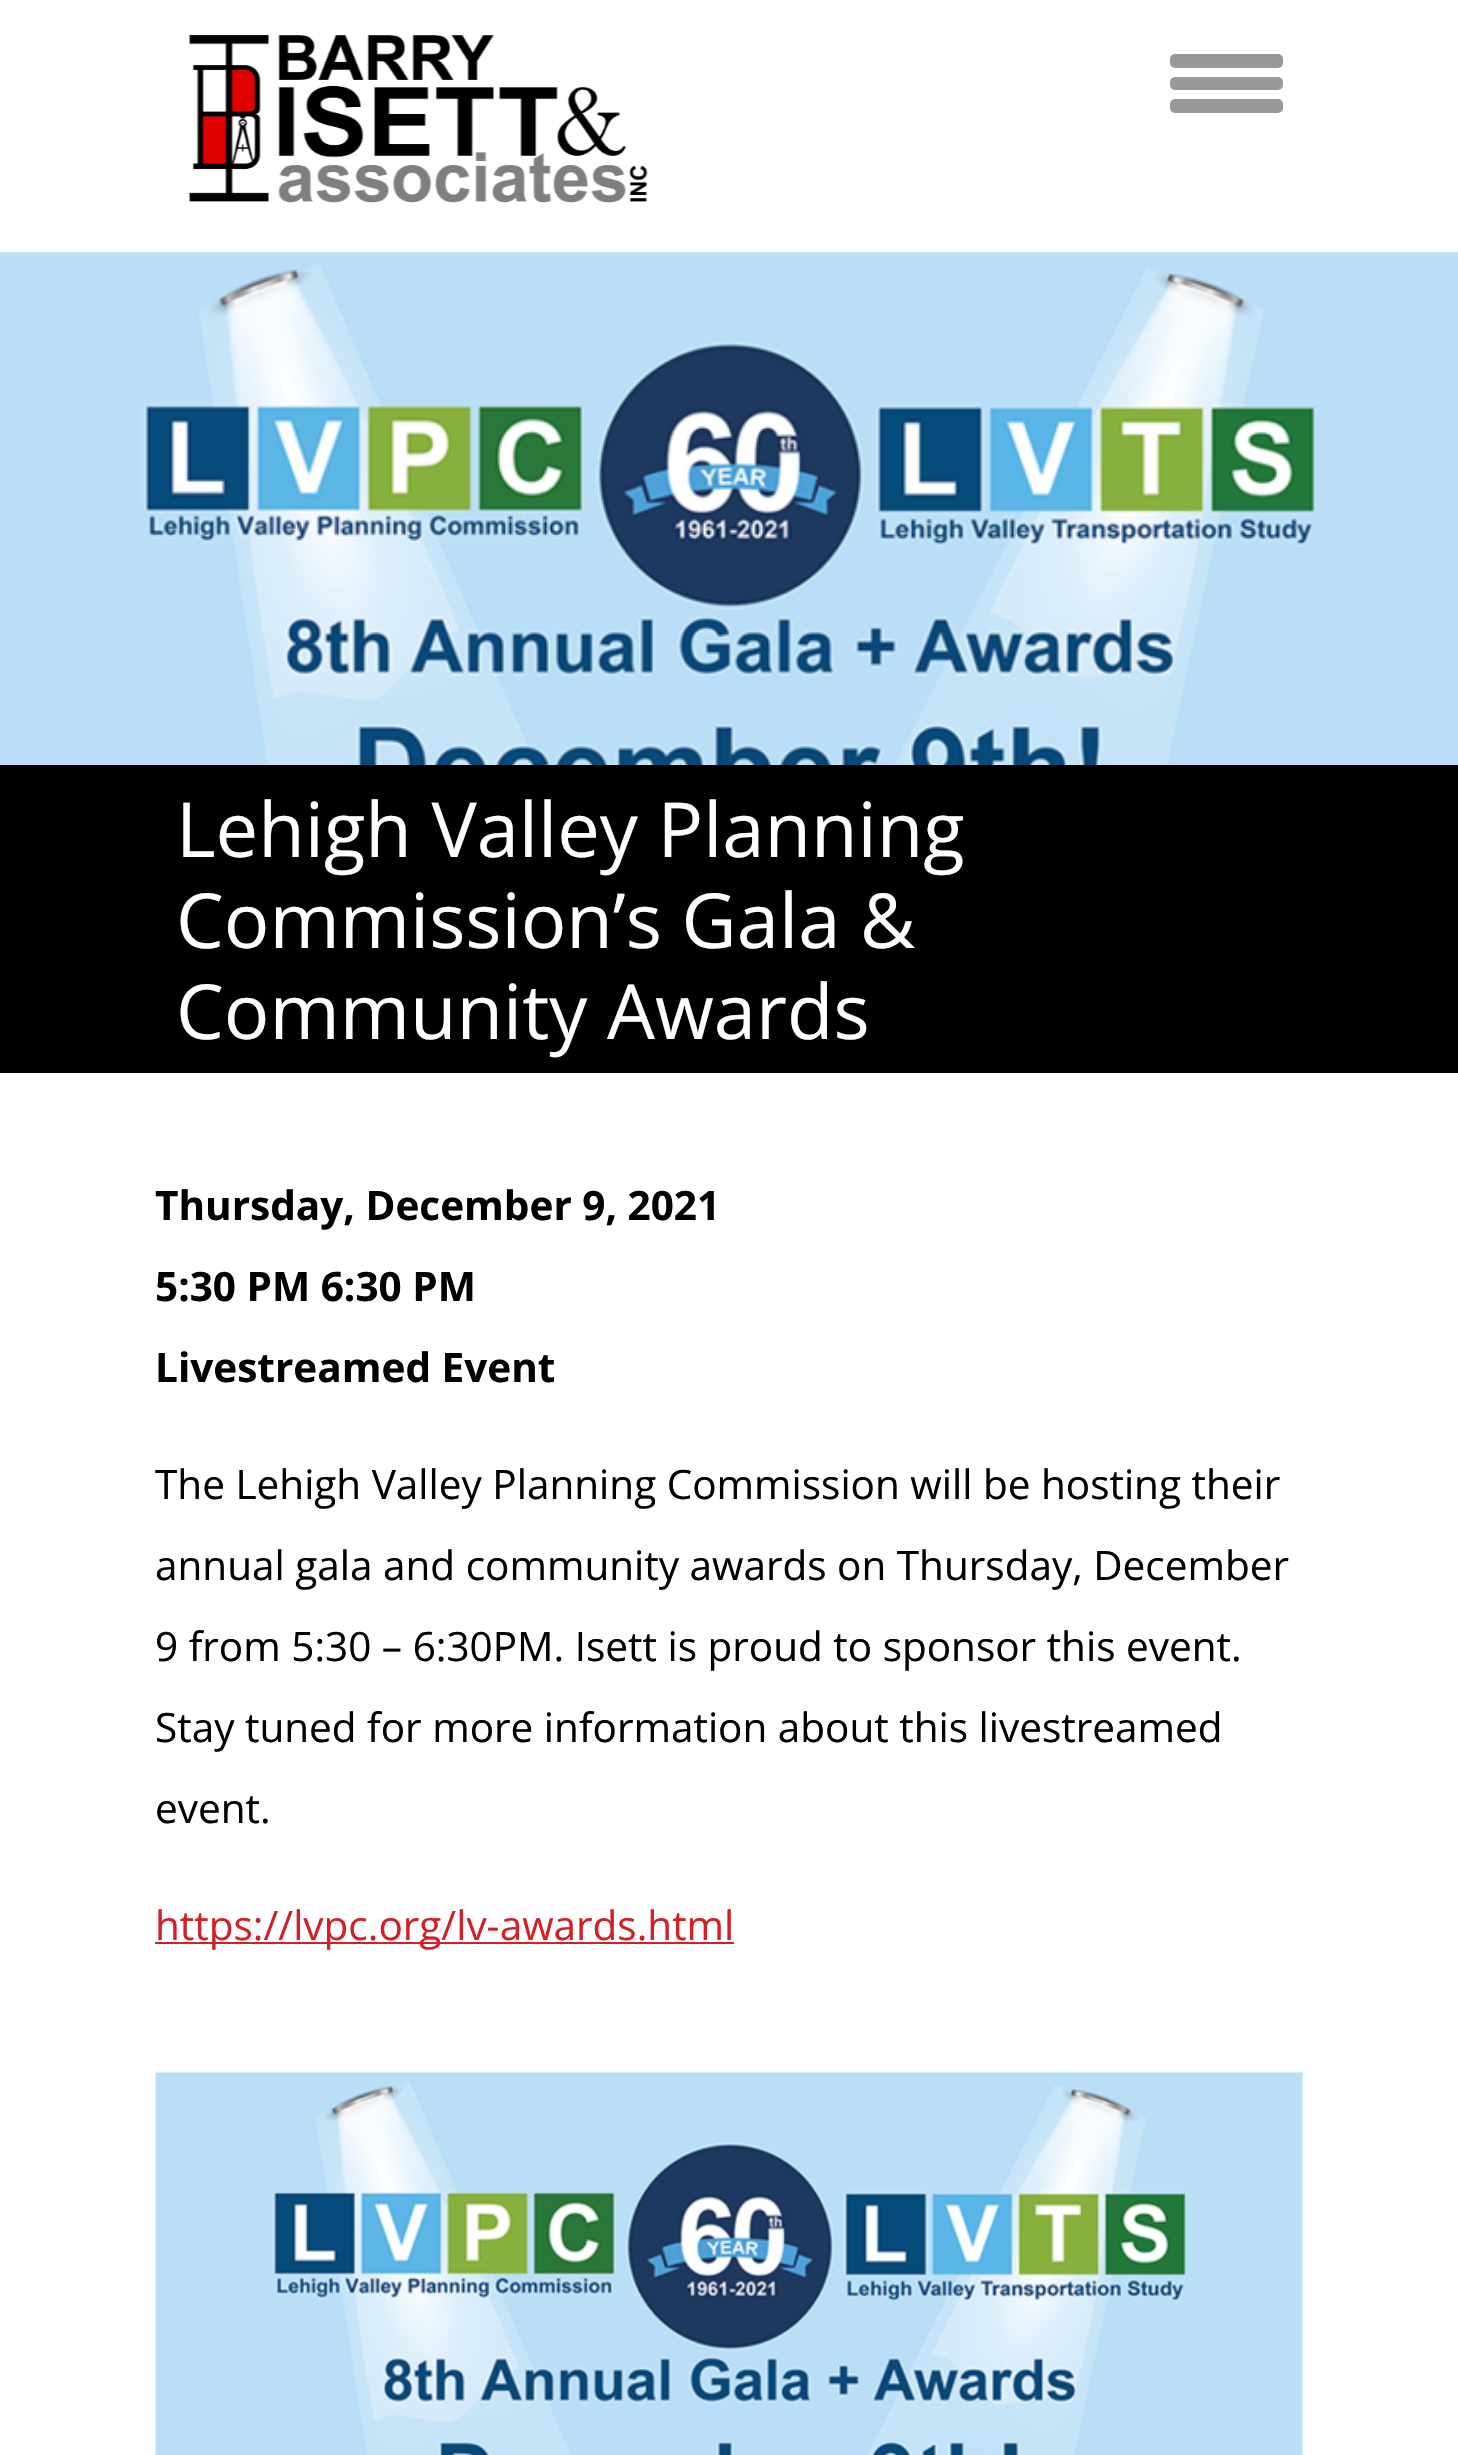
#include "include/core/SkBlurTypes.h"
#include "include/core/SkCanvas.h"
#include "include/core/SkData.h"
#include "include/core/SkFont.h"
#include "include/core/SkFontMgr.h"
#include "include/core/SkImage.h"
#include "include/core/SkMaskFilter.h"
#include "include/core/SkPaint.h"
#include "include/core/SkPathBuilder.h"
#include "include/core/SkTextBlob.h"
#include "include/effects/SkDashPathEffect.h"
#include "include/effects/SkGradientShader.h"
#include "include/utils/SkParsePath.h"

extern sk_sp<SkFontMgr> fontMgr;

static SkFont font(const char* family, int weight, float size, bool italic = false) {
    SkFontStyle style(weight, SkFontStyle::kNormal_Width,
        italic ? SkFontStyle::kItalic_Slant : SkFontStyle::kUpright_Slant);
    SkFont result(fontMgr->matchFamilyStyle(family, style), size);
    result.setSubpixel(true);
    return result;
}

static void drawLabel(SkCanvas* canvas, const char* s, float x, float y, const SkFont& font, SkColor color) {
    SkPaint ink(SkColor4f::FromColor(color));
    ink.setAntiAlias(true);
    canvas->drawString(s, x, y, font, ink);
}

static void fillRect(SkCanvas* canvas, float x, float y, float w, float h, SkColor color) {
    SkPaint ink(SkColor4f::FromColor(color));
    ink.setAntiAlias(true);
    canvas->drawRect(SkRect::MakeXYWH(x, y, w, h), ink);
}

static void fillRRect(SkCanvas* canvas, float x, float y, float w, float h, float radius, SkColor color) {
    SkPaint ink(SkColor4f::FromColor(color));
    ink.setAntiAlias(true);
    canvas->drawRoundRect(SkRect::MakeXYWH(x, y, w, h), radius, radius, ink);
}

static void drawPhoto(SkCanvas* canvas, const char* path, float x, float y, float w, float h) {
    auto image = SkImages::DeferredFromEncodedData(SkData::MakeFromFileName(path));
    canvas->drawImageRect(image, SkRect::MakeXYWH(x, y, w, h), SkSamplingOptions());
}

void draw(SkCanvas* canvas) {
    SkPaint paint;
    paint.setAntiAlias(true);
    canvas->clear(0xFFFFFFFF);
    drawPhoto(canvas, "assets/img1.png", 189, 34, 459, 169);
    fillRRect(canvas, 1170, 54, 113, 14, 5, 0xFF999999);
    fillRRect(canvas, 1170, 77, 113, 13, 5, 0xFF999999);
    fillRRect(canvas, 1170, 99, 113, 14, 5, 0xFF999999);
    drawPhoto(canvas, "assets/img2.png", 0, 252, 1458, 513);
    fillRect(canvas, 0, 765, 1458, 308, 0xFF000000);
    SkFont font1 = font("Open Sans", 400, 75.9f);
    drawLabel(canvas, "Lehigh Valley Planning", 176, 857, font1, 0xFFFFFFFF);
    drawLabel(canvas, "Commission’s Gala &", 176, 948, font1, 0xFFFFFFFF);
    drawLabel(canvas, "Community Awards", 176, 1039, font1, 0xFFFFFFFF);
    SkFont font2 = font("Open Sans", 700, 40.5f);
    drawLabel(canvas, "Thursday, December 9, 2021", 155, 1220, font2, 0xFF000000);
    drawLabel(canvas, "5:30 PM 6:30 PM", 155, 1301, font2, 0xFF000000);
    drawLabel(canvas, "Livestreamed Event", 155, 1382, font2, 0xFF000000);
    SkFont font3 = font("Open Sans", 400, 40.5f);
    drawLabel(canvas, "The Lehigh Valley Planning Commission will be hosting their", 155, 1499, font3, 0xFF000000);
    drawLabel(canvas, "annual gala and community awards on Thursday, December", 155, 1580, font3, 0xFF000000);
    drawLabel(canvas, "9 from 5:30 – 6:30PM. Isett is proud to sponsor this event.", 155, 1661, font3, 0xFF000000);
    drawLabel(canvas, "Stay tuned for more information about this livestreamed", 155, 1742, font3, 0xFF000000);
    drawLabel(canvas, "event.", 155, 1823, font3, 0xFF000000);
    fillRect(canvas, 155, 1942, 579, 2, 0xFFD32027);
    drawLabel(canvas, "https://lvpc.org/lv-awards.html", 155, 1940, font3, 0xFFD32027);
    drawPhoto(canvas, "assets/img3.png", 155, 2072, 1148, 383);
}
